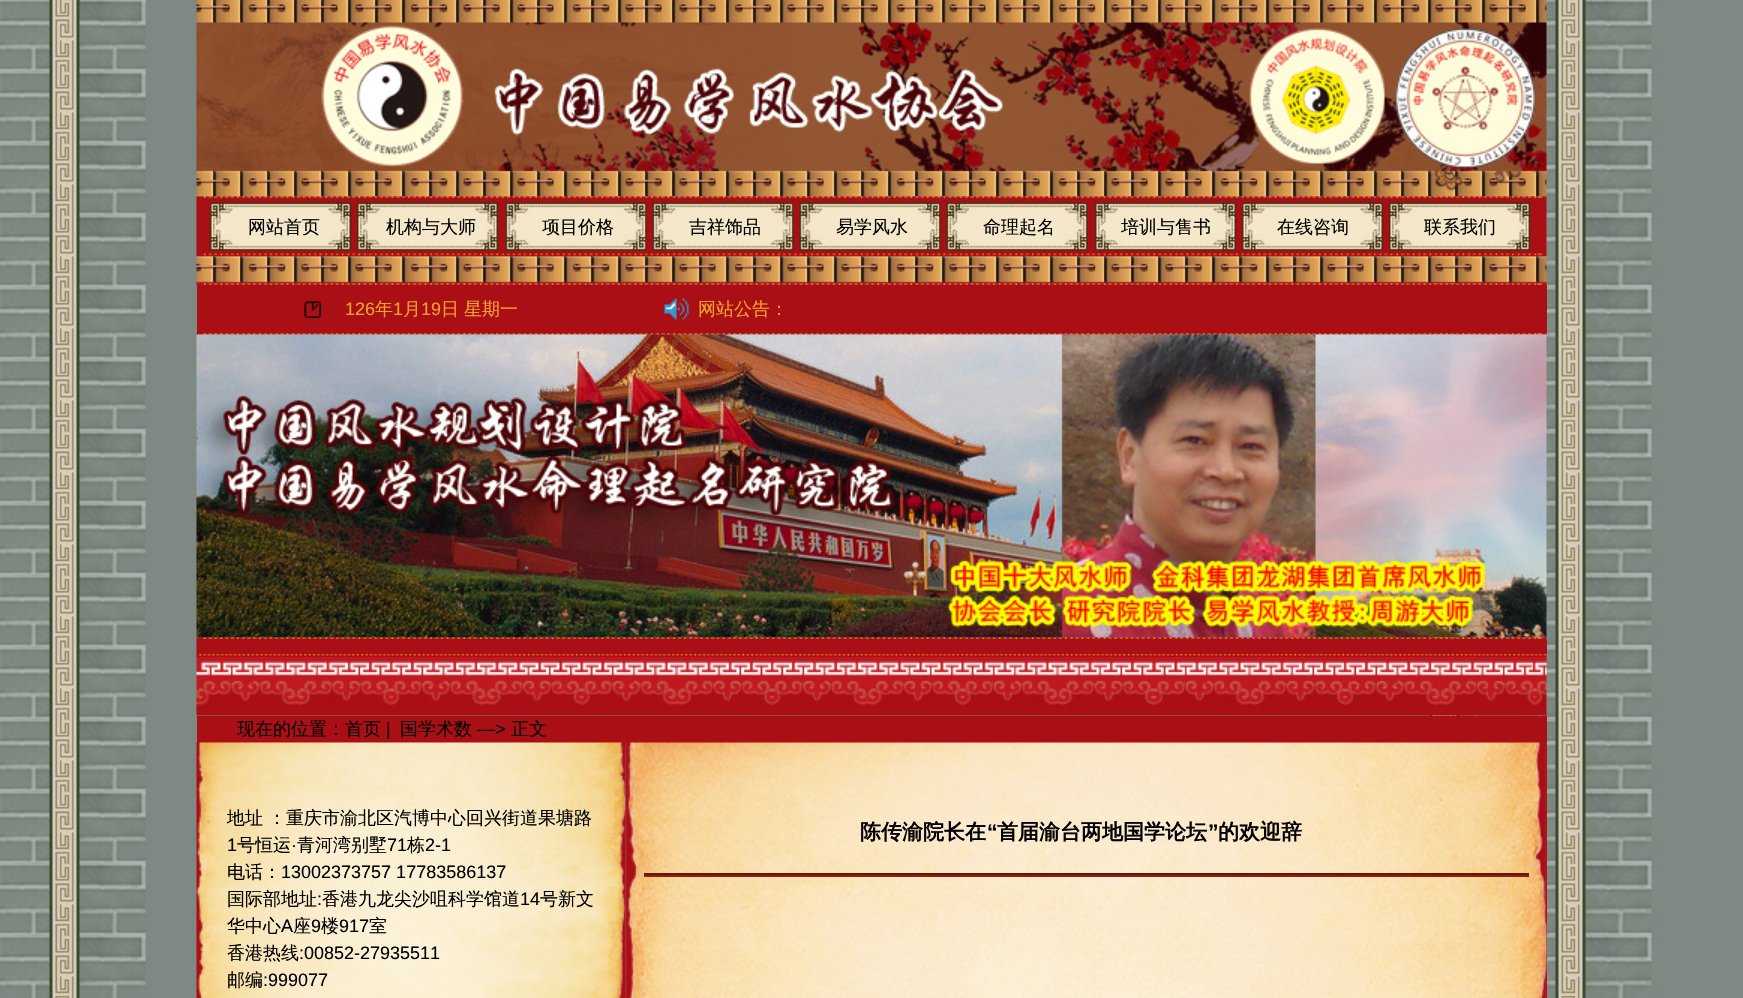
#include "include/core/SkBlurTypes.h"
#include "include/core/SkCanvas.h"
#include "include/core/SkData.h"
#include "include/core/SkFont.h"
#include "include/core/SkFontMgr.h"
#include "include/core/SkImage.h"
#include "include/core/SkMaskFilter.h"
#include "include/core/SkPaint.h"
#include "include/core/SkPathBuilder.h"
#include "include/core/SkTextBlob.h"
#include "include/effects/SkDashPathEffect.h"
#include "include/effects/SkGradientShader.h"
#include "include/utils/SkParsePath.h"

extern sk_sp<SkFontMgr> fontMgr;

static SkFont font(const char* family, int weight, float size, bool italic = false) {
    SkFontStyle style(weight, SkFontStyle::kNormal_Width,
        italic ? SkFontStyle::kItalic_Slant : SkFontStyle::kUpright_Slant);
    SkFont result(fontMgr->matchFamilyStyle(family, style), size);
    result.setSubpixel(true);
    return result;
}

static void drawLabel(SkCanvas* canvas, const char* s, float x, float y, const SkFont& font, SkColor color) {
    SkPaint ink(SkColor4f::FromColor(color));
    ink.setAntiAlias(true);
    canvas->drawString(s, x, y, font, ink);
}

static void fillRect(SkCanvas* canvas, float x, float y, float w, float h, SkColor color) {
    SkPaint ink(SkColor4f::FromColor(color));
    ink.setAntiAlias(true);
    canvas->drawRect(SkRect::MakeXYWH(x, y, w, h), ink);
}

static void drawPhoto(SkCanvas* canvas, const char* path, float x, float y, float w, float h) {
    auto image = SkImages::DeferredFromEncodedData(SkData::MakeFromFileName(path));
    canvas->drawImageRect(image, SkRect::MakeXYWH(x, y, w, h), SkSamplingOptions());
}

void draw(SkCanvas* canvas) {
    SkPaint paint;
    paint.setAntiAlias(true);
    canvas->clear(0xFFFFFFFF);
    drawPhoto(canvas, "assets/img1.png", 0, 0, 1743, 998);
    drawPhoto(canvas, "assets/img2.png", 196, 0, 1351, 197);
    drawPhoto(canvas, "assets/img3.png", 196, 196, 1351, 2);
    drawPhoto(canvas, "assets/img4.png", 196, 198, 1351, 59);
    SkFont font1 = font("WenQuanYi Zen Hei", 500, 18);
    drawLabel(canvas, "网站首页", 248, 233, font1, 0xFF000000);
    drawLabel(canvas, "机构与大师", 386, 233, font1, 0xFF000000);
    drawLabel(canvas, "项目价格", 542, 233, font1, 0xFF000000);
    drawLabel(canvas, "吉祥饰品", 689, 233, font1, 0xFF000000);
    drawLabel(canvas, "易学风水", 836, 233, font1, 0xFF000000);
    drawLabel(canvas, "命理起名", 983, 233, font1, 0xFF000000);
    drawLabel(canvas, "培训与售书", 1121, 233, font1, 0xFF000000);
    drawLabel(canvas, "在线咨询", 1277, 233, font1, 0xFF000000);
    drawLabel(canvas, "联系我们", 1424, 233, font1, 0xFF000000);
    drawPhoto(canvas, "assets/img5.png", 196, 256, 1351, 28);
    drawPhoto(canvas, "assets/img6.png", 196, 283, 1351, 2);
    fillRect(canvas, 197, 285, 1350, 48, 0xFFAA0F15);
    drawPhoto(canvas, "assets/img7.png", 304, 301, 17, 17);
    SkFont font2 = font("Liberation Sans", 400, 18);
    drawLabel(canvas, "126", 345, 315, font2, 0xFFF4A22C);
    drawLabel(canvas, "年", 375, 315, font1, 0xFFF4A22C);
    drawLabel(canvas, "1", 393, 315, font2, 0xFFF4A22C);
    drawLabel(canvas, "月", 403, 315, font1, 0xFFF4A22C);
    drawLabel(canvas, "19", 421, 315, font2, 0xFFF4A22C);
    drawLabel(canvas, "日", 441, 315, font1, 0xFFF4A22C);
    drawLabel(canvas, "星期一", 464, 315, font1, 0xFFF4A22C);
    drawPhoto(canvas, "assets/img8.png", 664, 298, 25, 22);
    drawLabel(canvas, "网站公告：", 698, 315, font1, 0xFFF4A22C);
    drawPhoto(canvas, "assets/img9.png", 196, 333, 1351, 2);
    drawPhoto(canvas, "assets/img10.png", 196, 334, 1351, 304);
    drawPhoto(canvas, "assets/img11.png", 196, 637, 1351, 2);
    drawPhoto(canvas, "assets/img12.png", 196, 639, 2, 15);
    drawPhoto(canvas, "assets/img13.png", 198, 639, 1349, 1);
    fillRect(canvas, 198, 640, 1349, 14, 0xFFAA0F15);
    drawPhoto(canvas, "assets/img14.png", 196, 654, 1351, 3);
    drawPhoto(canvas, "assets/img15.png", 196, 657, 1351, 59);
    fillRect(canvas, 197, 716, 1350, 27, 0xFFAA0F15);
    drawLabel(canvas, "现在的位置：首页", 237, 735, font1, 0xFF000000);
    drawLabel(canvas, "|", 386, 735, font2, 0xFF000000);
    drawLabel(canvas, "国学术数", 400, 735, font1, 0xFF000000);
    drawLabel(canvas, "—>", 477, 735, font2, 0xFF000000);
    drawLabel(canvas, "正文", 511, 735, font1, 0xFF000000);
    drawPhoto(canvas, "assets/img16.png", 196, 742, 430, 256);
    drawLabel(canvas, "地址", 227, 824, font1, 0xFF000000);
    drawLabel(canvas, "：重庆市渝北区汽博中心回兴街道果塘路", 268, 824, font1, 0xFF000000);
    drawLabel(canvas, "1", 227, 851, font2, 0xFF000000);
    drawLabel(canvas, "号恒运", 237, 851, font1, 0xFF000000);
    drawLabel(canvas, "·", 291, 851, font2, 0xFF000000);
    drawLabel(canvas, "青河湾别墅", 297, 851, font1, 0xFF000000);
    drawLabel(canvas, "71", 387, 851, font2, 0xFF000000);
    drawLabel(canvas, "栋", 407, 851, font1, 0xFF000000);
    drawLabel(canvas, "2-1", 425, 851, font2, 0xFF000000);
    drawLabel(canvas, "电话：", 227, 878, font1, 0xFF000000);
    drawLabel(canvas, "13002373757 17783586137", 281, 878, font2, 0xFF000000);
    drawLabel(canvas, "国际部地址", 227, 905, font1, 0xFF000000);
    drawLabel(canvas, ":", 317, 905, font2, 0xFF000000);
    drawLabel(canvas, "香港九龙尖沙咀科学馆道", 322, 905, font1, 0xFF000000);
    drawLabel(canvas, "14", 520, 905, font2, 0xFF000000);
    drawLabel(canvas, "号新文", 540, 905, font1, 0xFF000000);
    drawLabel(canvas, "华中心", 227, 932, font1, 0xFF000000);
    drawLabel(canvas, "A", 281, 932, font2, 0xFF000000);
    drawLabel(canvas, "座", 293, 932, font1, 0xFF000000);
    drawLabel(canvas, "9", 311, 932, font2, 0xFF000000);
    drawLabel(canvas, "楼", 321, 932, font1, 0xFF000000);
    drawLabel(canvas, "917", 339, 932, font2, 0xFF000000);
    drawLabel(canvas, "室", 369, 932, font1, 0xFF000000);
    drawLabel(canvas, "香港热线", 227, 959, font1, 0xFF000000);
    drawLabel(canvas, ":00852-27935511", 299, 959, font2, 0xFF000000);
    drawLabel(canvas, "邮编", 227, 986, font1, 0xFF000000);
    drawLabel(canvas, ":999077", 263, 986, font2, 0xFF000000);
    fillRect(canvas, 1546, 743, 1, 255, 0xFFAA0F15);
    drawPhoto(canvas, "assets/img17.png", 625, 742, 922, 256);
    SkFont font3 = font("WenQuanYi Zen Hei", 700, 21);
    drawLabel(canvas, "陈传渝院长在", 860, 839, font3, 0xFF000000);
    SkFont font4 = font("Liberation Sans", 700, 21);
    drawLabel(canvas, "“", 987, 839, font4, 0xFF000000);
    drawLabel(canvas, "首届渝台两地国学论坛", 997, 839, font3, 0xFF000000);
    drawLabel(canvas, "”", 1208, 839, font4, 0xFF000000);
    drawLabel(canvas, "的欢迎辞", 1218, 839, font3, 0xFF000000);
    fillRect(canvas, 644, 873, 885, 2, 0xFF790F00);
    fillRect(canvas, 644, 875, 885, 2, 0xFF7F2517);
}
